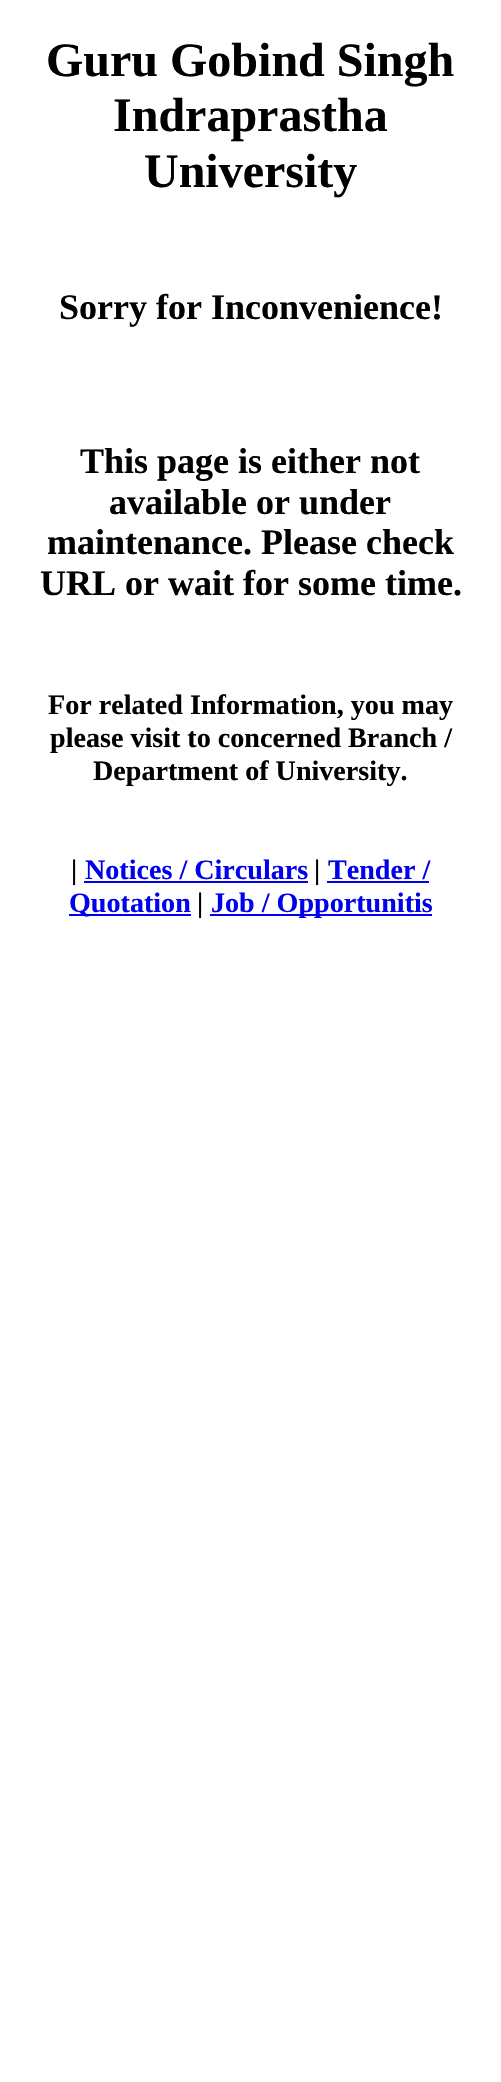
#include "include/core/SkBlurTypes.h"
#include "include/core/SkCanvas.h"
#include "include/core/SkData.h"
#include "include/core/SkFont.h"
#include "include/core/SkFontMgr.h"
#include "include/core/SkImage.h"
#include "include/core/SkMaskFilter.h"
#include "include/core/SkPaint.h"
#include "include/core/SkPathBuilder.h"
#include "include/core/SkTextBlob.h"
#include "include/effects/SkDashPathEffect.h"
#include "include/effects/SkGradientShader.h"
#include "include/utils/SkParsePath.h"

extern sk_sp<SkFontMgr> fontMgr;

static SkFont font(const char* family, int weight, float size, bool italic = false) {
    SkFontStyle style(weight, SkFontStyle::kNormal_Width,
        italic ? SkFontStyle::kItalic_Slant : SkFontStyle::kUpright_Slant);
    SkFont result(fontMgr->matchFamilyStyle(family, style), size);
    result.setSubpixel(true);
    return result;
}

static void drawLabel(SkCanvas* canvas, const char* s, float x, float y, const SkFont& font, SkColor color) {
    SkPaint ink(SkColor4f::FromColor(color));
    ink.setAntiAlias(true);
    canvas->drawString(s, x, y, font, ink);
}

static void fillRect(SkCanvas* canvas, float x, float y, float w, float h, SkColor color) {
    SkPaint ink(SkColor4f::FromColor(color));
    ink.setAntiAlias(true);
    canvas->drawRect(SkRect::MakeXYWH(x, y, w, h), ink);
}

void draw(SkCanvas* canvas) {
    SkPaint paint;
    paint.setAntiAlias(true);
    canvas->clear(0xFFFFFFFF);
    SkFont font1 = font("Liberation Serif", 700, 48);
    drawLabel(canvas, "Guru Gobind Singh", 46, 76, font1, 0xFF000000);
    drawLabel(canvas, "Indraprastha", 113, 131, font1, 0xFF000000);
    drawLabel(canvas, "University", 144, 187, font1, 0xFF000000);
    SkFont font2 = font("Liberation Serif", 700, 36);
    drawLabel(canvas, "Sorry for Inconvenience!", 59, 319, font2, 0xFF000000);
    drawLabel(canvas, "This page is either not", 80, 473, font2, 0xFF000000);
    drawLabel(canvas, "available or under", 109, 514, font2, 0xFF000000);
    drawLabel(canvas, "maintenance. Please check", 47, 554, font2, 0xFF000000);
    drawLabel(canvas, "URL or wait for some time.", 40, 595, font2, 0xFF000000);
    SkFont font3 = font("Liberation Serif", 700, 28.1f);
    drawLabel(canvas, "For related Information, you may", 48, 714, font3, 0xFF000000);
    drawLabel(canvas, "please visit to concerned Branch /", 50, 747, font3, 0xFF000000);
    drawLabel(canvas, "Department of University.", 93, 780, font3, 0xFF000000);
    drawLabel(canvas, "|", 71, 879, font3, 0xFF000000);
    drawLabel(canvas, "Notices / Circulars", 85, 879, font3, 0xFF0000EE);
    fillRect(canvas, 84, 881, 224, 2, 0xFF0000EE);
    drawLabel(canvas, "|", 314, 879, font3, 0xFF000000);
    drawLabel(canvas, "Tender /", 328, 879, font3, 0xFF0000EE);
    fillRect(canvas, 327, 881, 102, 2, 0xFF0000EE);
    fillRect(canvas, 69, 914, 122, 2, 0xFF0000EE);
    drawLabel(canvas, "Quotation", 69, 912, font3, 0xFF0000EE);
    drawLabel(canvas, "|", 197, 912, font3, 0xFF000000);
    fillRect(canvas, 210, 914, 222, 2, 0xFF0000EE);
    drawLabel(canvas, "Job / Opportunitis", 211, 912, font3, 0xFF0000EE);
}
